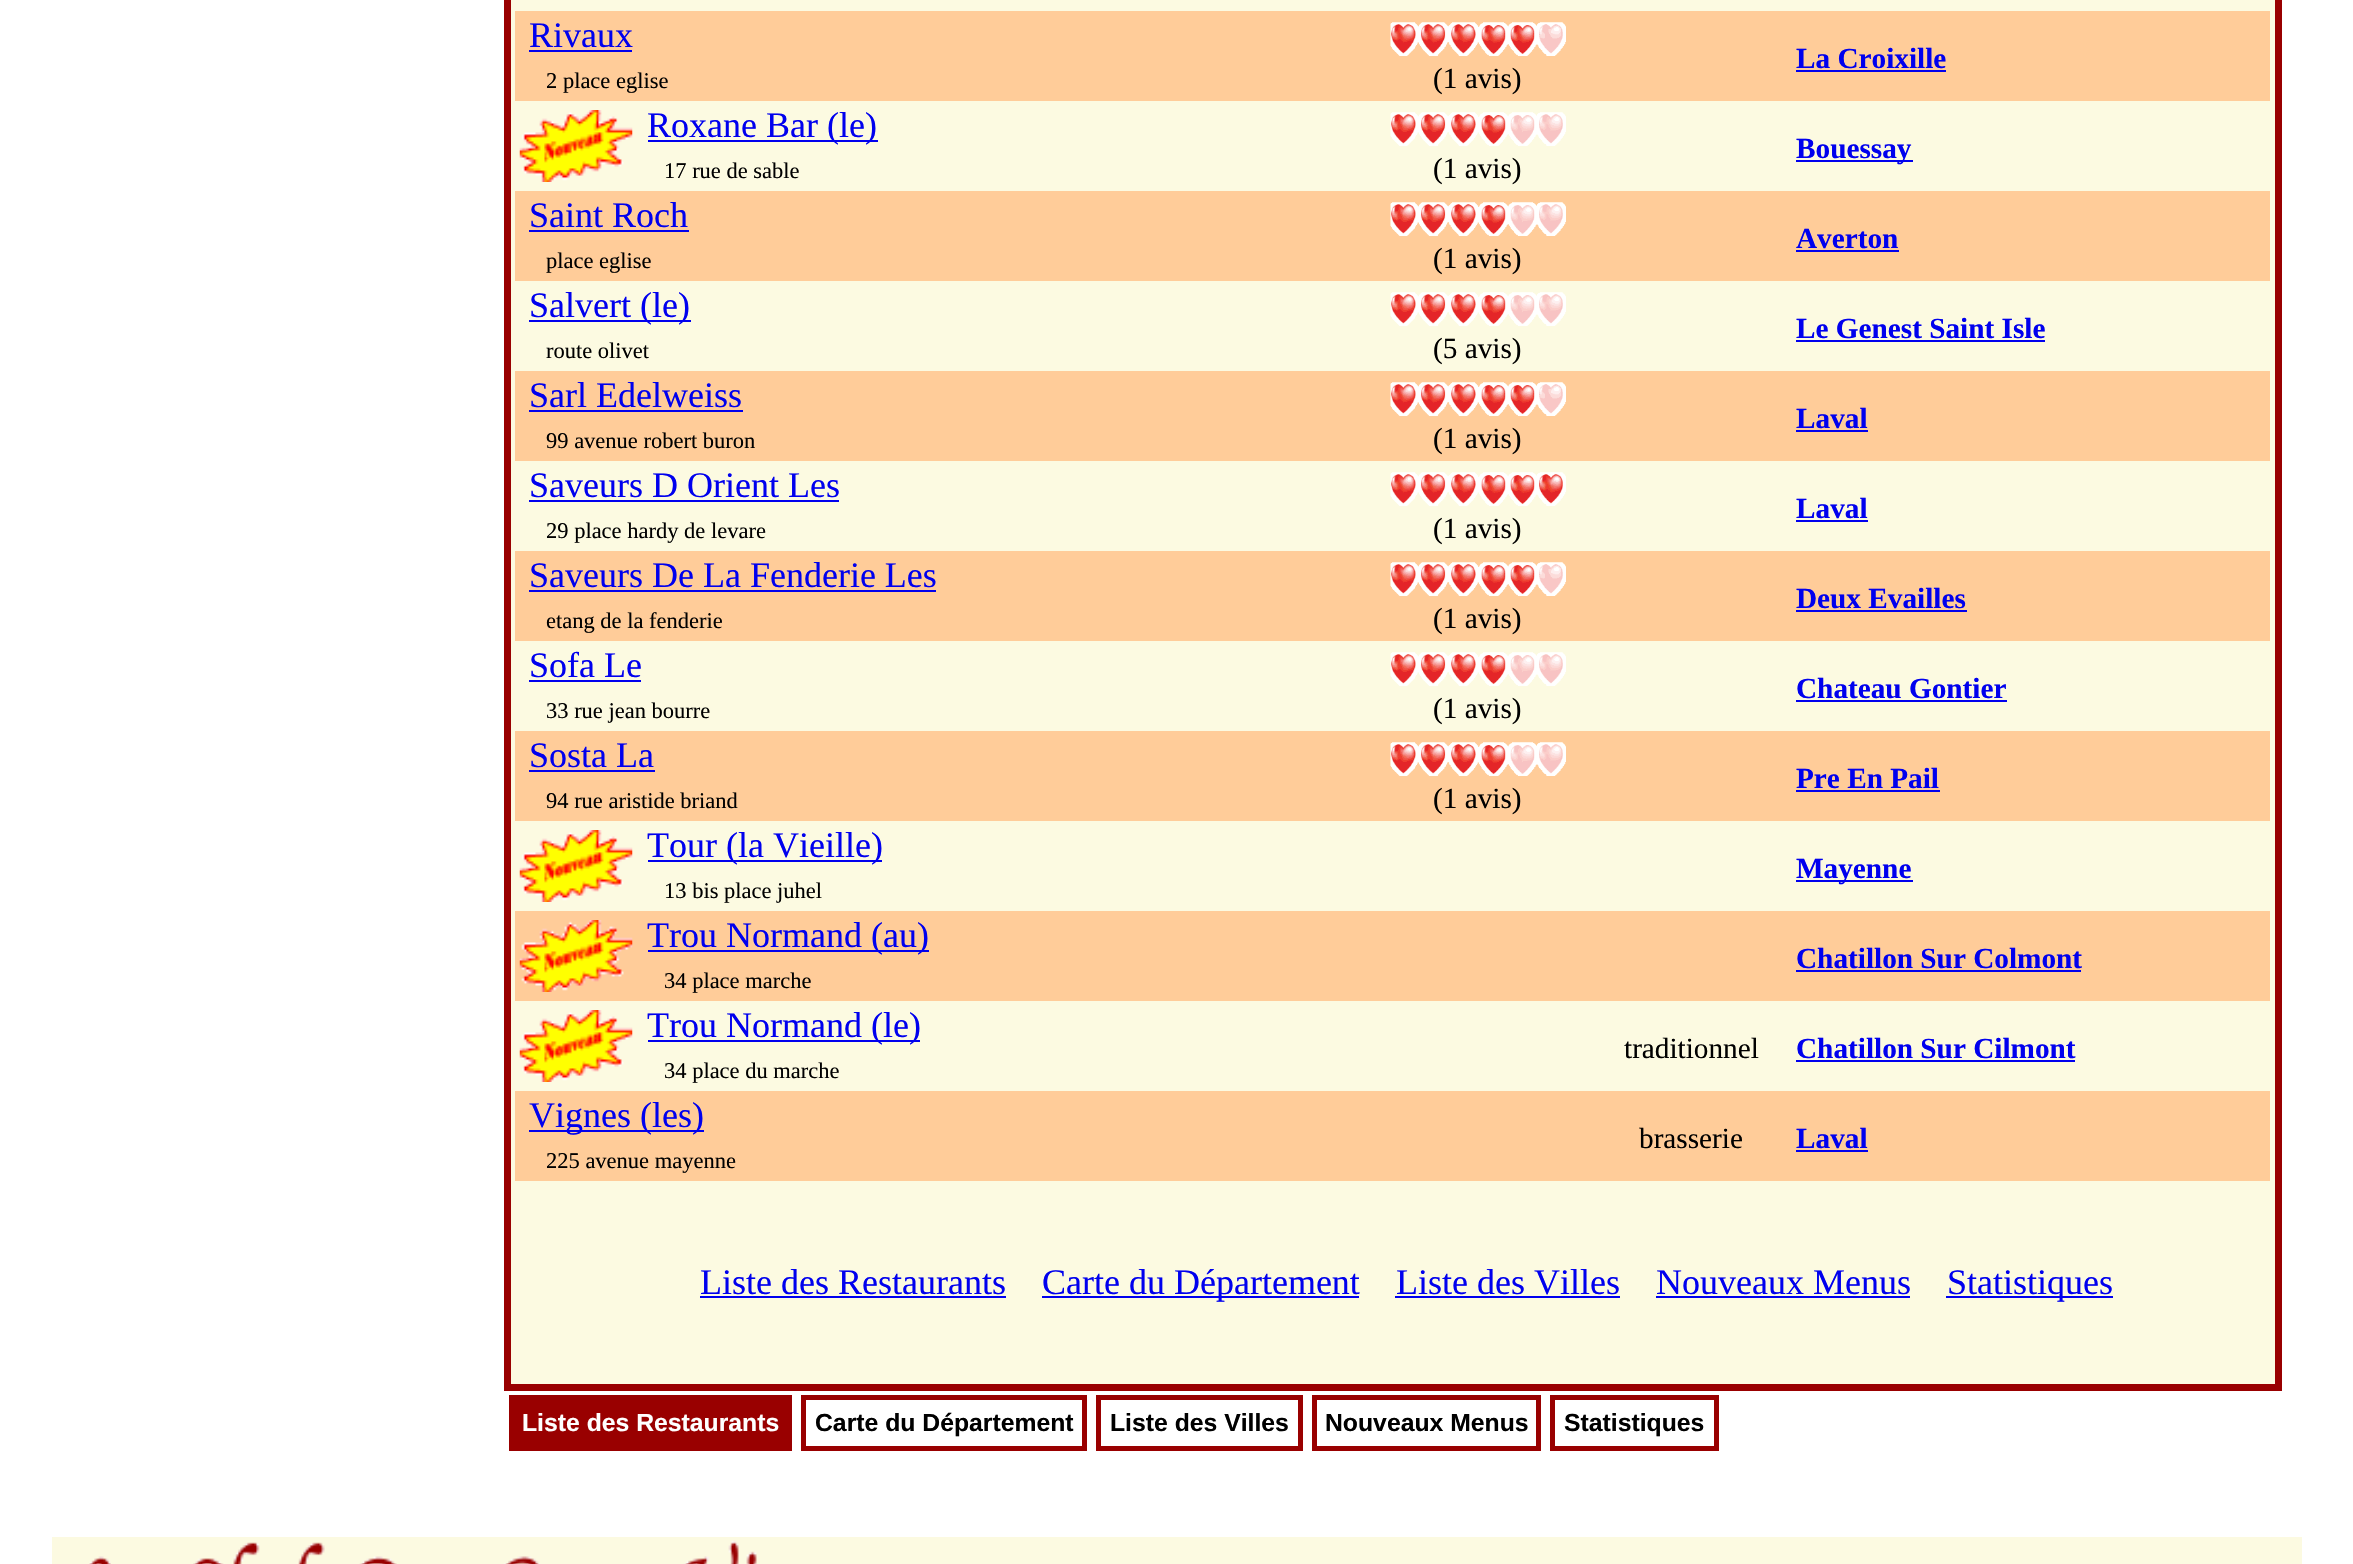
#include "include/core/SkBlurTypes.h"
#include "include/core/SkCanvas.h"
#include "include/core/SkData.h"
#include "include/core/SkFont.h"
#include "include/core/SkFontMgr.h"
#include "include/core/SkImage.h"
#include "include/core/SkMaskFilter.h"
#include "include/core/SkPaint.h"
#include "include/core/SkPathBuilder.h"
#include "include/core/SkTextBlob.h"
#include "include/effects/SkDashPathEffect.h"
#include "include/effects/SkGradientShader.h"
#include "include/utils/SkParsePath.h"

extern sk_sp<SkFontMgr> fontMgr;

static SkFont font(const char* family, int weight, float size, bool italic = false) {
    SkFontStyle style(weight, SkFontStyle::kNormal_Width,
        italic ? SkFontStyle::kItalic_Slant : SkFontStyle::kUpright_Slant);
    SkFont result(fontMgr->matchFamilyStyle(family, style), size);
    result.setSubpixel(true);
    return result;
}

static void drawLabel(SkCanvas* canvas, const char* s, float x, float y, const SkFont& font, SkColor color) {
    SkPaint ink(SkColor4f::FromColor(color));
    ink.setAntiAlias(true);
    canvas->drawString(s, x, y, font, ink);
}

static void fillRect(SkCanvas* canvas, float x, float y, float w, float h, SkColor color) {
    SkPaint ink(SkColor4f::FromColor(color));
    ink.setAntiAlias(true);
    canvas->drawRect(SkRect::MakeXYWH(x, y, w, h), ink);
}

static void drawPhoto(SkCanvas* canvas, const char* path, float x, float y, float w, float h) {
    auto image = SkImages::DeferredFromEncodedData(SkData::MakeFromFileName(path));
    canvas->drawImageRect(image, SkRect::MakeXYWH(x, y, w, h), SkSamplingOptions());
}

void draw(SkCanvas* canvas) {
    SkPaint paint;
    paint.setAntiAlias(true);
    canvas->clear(0xFFFFFFFF);
    paint.setColor(0xFFFCFAE1);
    canvas->drawRect(SkRect::MakeXYWH(507.5f, -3.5f, 1771, 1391), paint);
    paint.setStroke(true);
    paint.setStrokeWidth(7);
    paint.setColor(0xFF990000);
    canvas->drawRect(SkRect::MakeXYWH(507.5f, -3.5f, 1771, 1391), paint);
    fillRect(canvas, 515, 11, 1755, 90, 0xFFFFCC99);
    SkFont font1 = font("Liberation Serif", 400, 36);
    drawLabel(canvas, "Rivaux", 529, 47, font1, 0xFF0000EE);
    fillRect(canvas, 529, 50, 103, 2, 0xFF0000EE);
    SkFont font2 = font("Liberation Serif", 400, 22.5f);
    drawLabel(canvas, "2 place eglise", 546, 88, font2, 0xFF000000);
    SkFont font3 = font("Liberation Serif", 700, 29.25f);
    drawLabel(canvas, "La Croixille", 1796, 68, font3, 0xFF0000EE);
    fillRect(canvas, 1796, 70, 150, 2, 0xFF0000EE);
    drawPhoto(canvas, "assets/img1.png", 1390, 22, 176, 34);
    SkFont font4 = font("Liberation Serif", 400, 29.25f);
    drawLabel(canvas, "(1 avis)", 1433, 88, font4, 0xFF000000);
    drawPhoto(canvas, "assets/img2.png", 519, 110, 114, 72);
    fillRect(canvas, 648, 140, 230, 2, 0xFF0000EE);
    drawLabel(canvas, "Roxane Bar (le)", 647, 137, font1, 0xFF0000EE);
    drawLabel(canvas, "17 rue de sable", 664, 178, font2, 0xFF000000);
    fillRect(canvas, 1796, 160, 117, 2, 0xFF0000EE);
    drawLabel(canvas, "Bouessay", 1796, 158, font3, 0xFF0000EE);
    drawPhoto(canvas, "assets/img3.png", 1390, 112, 176, 34);
    drawLabel(canvas, "(1 avis)", 1433, 178, font4, 0xFF000000);
    fillRect(canvas, 515, 191, 1755, 90, 0xFFFFCC99);
    drawLabel(canvas, "Saint Roch", 529, 227, font1, 0xFF0000EE);
    fillRect(canvas, 529, 230, 160, 2, 0xFF0000EE);
    drawLabel(canvas, "place eglise", 546, 268, font2, 0xFF000000);
    drawLabel(canvas, "Averton", 1796, 248, font3, 0xFF0000EE);
    fillRect(canvas, 1796, 250, 103, 2, 0xFF0000EE);
    drawPhoto(canvas, "assets/img4.png", 1390, 202, 176, 34);
    drawLabel(canvas, "(1 avis)", 1433, 268, font4, 0xFF000000);
    fillRect(canvas, 529, 320, 162, 2, 0xFF0000EE);
    drawLabel(canvas, "Salvert (le)", 529, 317, font1, 0xFF0000EE);
    drawLabel(canvas, "route olivet", 546, 358, font2, 0xFF000000);
    drawLabel(canvas, "Le Genest Saint Isle", 1796, 338, font3, 0xFF0000EE);
    fillRect(canvas, 1796, 340, 249, 2, 0xFF0000EE);
    drawPhoto(canvas, "assets/img3.png", 1390, 292, 176, 34);
    drawLabel(canvas, "(5 avis)", 1433, 358, font4, 0xFF000000);
    fillRect(canvas, 515, 371, 1755, 90, 0xFFFFCC99);
    drawLabel(canvas, "Sarl Edelweiss", 529, 407, font1, 0xFF0000EE);
    fillRect(canvas, 529, 410, 214, 2, 0xFF0000EE);
    drawLabel(canvas, "99 avenue robert buron", 546, 448, font2, 0xFF000000);
    drawLabel(canvas, "Laval", 1796, 428, font3, 0xFF0000EE);
    fillRect(canvas, 1796, 430, 72, 2, 0xFF0000EE);
    drawPhoto(canvas, "assets/img1.png", 1390, 382, 176, 34);
    drawLabel(canvas, "(1 avis)", 1433, 448, font4, 0xFF000000);
    drawLabel(canvas, "Saveurs D Orient Les", 529, 497, font1, 0xFF0000EE);
    fillRect(canvas, 529, 500, 310, 2, 0xFF0000EE);
    drawLabel(canvas, "29 place hardy de levare", 546, 538, font2, 0xFF000000);
    drawLabel(canvas, "Laval", 1796, 518, font3, 0xFF0000EE);
    fillRect(canvas, 1796, 520, 72, 2, 0xFF0000EE);
    drawPhoto(canvas, "assets/img5.png", 1390, 472, 176, 34);
    drawLabel(canvas, "(1 avis)", 1433, 538, font4, 0xFF000000);
    fillRect(canvas, 515, 551, 1755, 90, 0xFFFFCC99);
    drawLabel(canvas, "Saveurs De La Fenderie Les", 529, 587, font1, 0xFF0000EE);
    fillRect(canvas, 529, 590, 407, 2, 0xFF0000EE);
    drawLabel(canvas, "etang de la fenderie", 546, 628, font2, 0xFF000000);
    drawLabel(canvas, "Deux Evailles", 1796, 608, font3, 0xFF0000EE);
    fillRect(canvas, 1796, 610, 171, 2, 0xFF0000EE);
    drawPhoto(canvas, "assets/img1.png", 1390, 562, 176, 34);
    drawLabel(canvas, "(1 avis)", 1433, 628, font4, 0xFF000000);
    drawLabel(canvas, "Sofa Le", 529, 677, font1, 0xFF0000EE);
    fillRect(canvas, 529, 680, 112, 2, 0xFF0000EE);
    drawLabel(canvas, "33 rue jean bourre", 546, 718, font2, 0xFF000000);
    drawLabel(canvas, "Chateau Gontier", 1796, 698, font3, 0xFF0000EE);
    fillRect(canvas, 1796, 700, 211, 2, 0xFF0000EE);
    drawPhoto(canvas, "assets/img3.png", 1390, 652, 176, 34);
    drawLabel(canvas, "(1 avis)", 1433, 718, font4, 0xFF000000);
    fillRect(canvas, 515, 731, 1755, 90, 0xFFFFCC99);
    drawLabel(canvas, "Sosta La", 529, 767, font1, 0xFF0000EE);
    fillRect(canvas, 529, 770, 126, 2, 0xFF0000EE);
    drawLabel(canvas, "94 rue aristide briand", 546, 808, font2, 0xFF000000);
    drawLabel(canvas, "Pre En Pail", 1796, 788, font3, 0xFF0000EE);
    fillRect(canvas, 1796, 790, 144, 2, 0xFF0000EE);
    drawPhoto(canvas, "assets/img6.png", 1390, 742, 176, 34);
    drawLabel(canvas, "(1 avis)", 1433, 808, font4, 0xFF000000);
    drawPhoto(canvas, "assets/img2.png", 519, 830, 114, 72);
    fillRect(canvas, 648, 860, 234, 2, 0xFF0000EE);
    drawLabel(canvas, "Tour (la Vieille)", 647, 857, font1, 0xFF0000EE);
    drawLabel(canvas, "13 bis place juhel", 664, 898, font2, 0xFF000000);
    fillRect(canvas, 1796, 880, 117, 2, 0xFF0000EE);
    drawLabel(canvas, "Mayenne", 1796, 878, font3, 0xFF0000EE);
    fillRect(canvas, 515, 911, 1755, 90, 0xFFFFCC99);
    drawPhoto(canvas, "assets/img7.png", 519, 920, 114, 72);
    fillRect(canvas, 648, 950, 281, 2, 0xFF0000EE);
    drawLabel(canvas, "Trou Normand (au)", 647, 947, font1, 0xFF0000EE);
    drawLabel(canvas, "34 place marche", 664, 988, font2, 0xFF000000);
    drawLabel(canvas, "Chatillon Sur Colmont", 1796, 968, font3, 0xFF0000EE);
    fillRect(canvas, 1796, 970, 285, 2, 0xFF0000EE);
    drawPhoto(canvas, "assets/img2.png", 519, 1010, 114, 72);
    fillRect(canvas, 648, 1040, 272, 2, 0xFF0000EE);
    drawLabel(canvas, "Trou Normand (le)", 647, 1037, font1, 0xFF0000EE);
    drawLabel(canvas, "34 place du marche", 664, 1078, font2, 0xFF000000);
    drawLabel(canvas, "traditionnel", 1624, 1058, font4, 0xFF000000);
    drawLabel(canvas, "Chatillon Sur Cilmont", 1796, 1058, font3, 0xFF0000EE);
    fillRect(canvas, 1796, 1060, 279, 2, 0xFF0000EE);
    fillRect(canvas, 515, 1091, 1755, 90, 0xFFFFCC99);
    fillRect(canvas, 529, 1130, 175, 2, 0xFF0000EE);
    drawLabel(canvas, "Vignes (les)", 529, 1127, font1, 0xFF0000EE);
    drawLabel(canvas, "225 avenue mayenne", 546, 1168, font2, 0xFF000000);
    drawLabel(canvas, "brasserie", 1639, 1148, font4, 0xFF000000);
    drawLabel(canvas, "Laval", 1796, 1148, font3, 0xFF0000EE);
    fillRect(canvas, 1796, 1150, 72, 2, 0xFF0000EE);
    drawLabel(canvas, "Liste des Restaurants", 700, 1294, font1, 0xFF0000EE);
    fillRect(canvas, 700, 1296, 306, 2, 0xFF0000EE);
    fillRect(canvas, 1042, 1296, 317, 2, 0xFF0000EE);
    drawLabel(canvas, "Carte du Département", 1042, 1294, font1, 0xFF0000EE);
    drawLabel(canvas, "Liste des Villes", 1396, 1294, font1, 0xFF0000EE);
    fillRect(canvas, 1395, 1296, 225, 2, 0xFF0000EE);
    drawLabel(canvas, "Nouveaux Menus", 1656, 1294, font1, 0xFF0000EE);
    fillRect(canvas, 1656, 1296, 254, 2, 0xFF0000EE);
    fillRect(canvas, 1946, 1296, 167, 2, 0xFF0000EE);
    drawLabel(canvas, "Statistiques", 1947, 1294, font1, 0xFF0000EE);
    fillRect(canvas, 509, 1395, 283, 56, 0xFF990000);
    SkFont font5 = font("Liberation Sans", 700, 24.75f);
    drawLabel(canvas, "Liste des Restaurants", 522, 1431, font5, 0xFFFFFFFF);
    paint.setStrokeWidth(5);
    canvas->drawRect(SkRect::MakeXYWH(803.5f, 1397.5f, 281, 51), paint);
    drawLabel(canvas, "Carte du Département", 815, 1431, font5, 0xFF000000);
    canvas->drawRect(SkRect::MakeXYWH(1098.5f, 1397.5f, 202, 51), paint);
    drawLabel(canvas, "Liste des Villes", 1110, 1431, font5, 0xFF000000);
    canvas->drawRect(SkRect::MakeXYWH(1314.5f, 1397.5f, 224, 51), paint);
    drawLabel(canvas, "Nouveaux Menus", 1325, 1431, font5, 0xFF000000);
    canvas->drawRect(SkRect::MakeXYWH(1552.5f, 1397.5f, 164, 51), paint);
    drawLabel(canvas, "Statistiques", 1564, 1431, font5, 0xFF000000);
    fillRect(canvas, 52, 1537, 2250, 27, 0xFFFCFAE1);
    drawPhoto(canvas, "assets/img8.png", 89, 1540, 668, 24);
}
